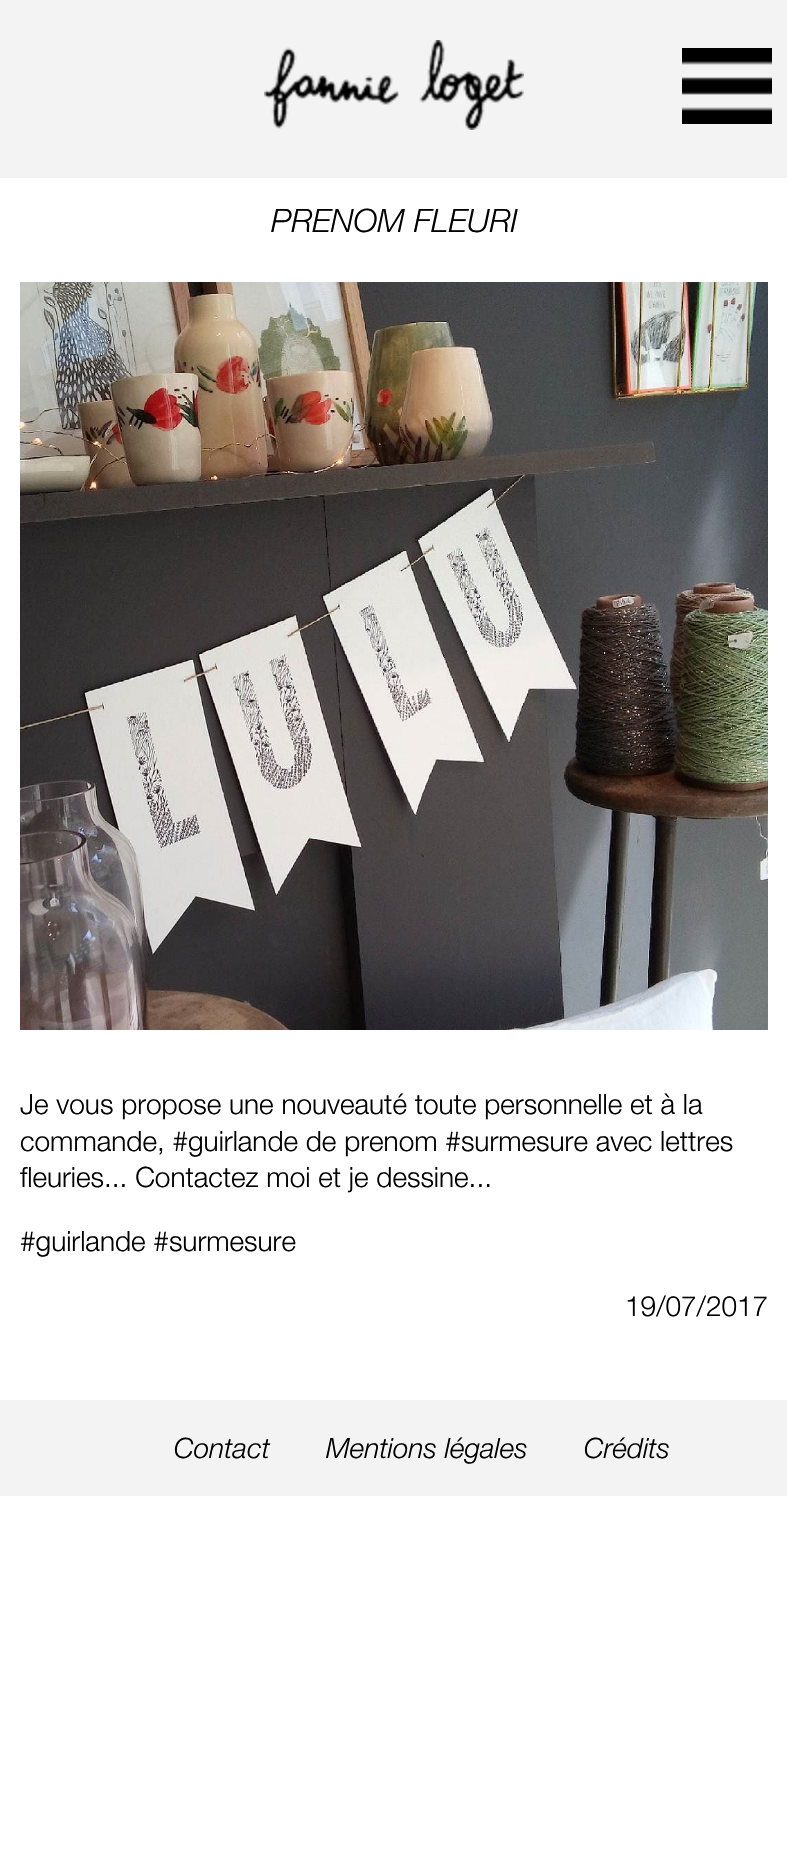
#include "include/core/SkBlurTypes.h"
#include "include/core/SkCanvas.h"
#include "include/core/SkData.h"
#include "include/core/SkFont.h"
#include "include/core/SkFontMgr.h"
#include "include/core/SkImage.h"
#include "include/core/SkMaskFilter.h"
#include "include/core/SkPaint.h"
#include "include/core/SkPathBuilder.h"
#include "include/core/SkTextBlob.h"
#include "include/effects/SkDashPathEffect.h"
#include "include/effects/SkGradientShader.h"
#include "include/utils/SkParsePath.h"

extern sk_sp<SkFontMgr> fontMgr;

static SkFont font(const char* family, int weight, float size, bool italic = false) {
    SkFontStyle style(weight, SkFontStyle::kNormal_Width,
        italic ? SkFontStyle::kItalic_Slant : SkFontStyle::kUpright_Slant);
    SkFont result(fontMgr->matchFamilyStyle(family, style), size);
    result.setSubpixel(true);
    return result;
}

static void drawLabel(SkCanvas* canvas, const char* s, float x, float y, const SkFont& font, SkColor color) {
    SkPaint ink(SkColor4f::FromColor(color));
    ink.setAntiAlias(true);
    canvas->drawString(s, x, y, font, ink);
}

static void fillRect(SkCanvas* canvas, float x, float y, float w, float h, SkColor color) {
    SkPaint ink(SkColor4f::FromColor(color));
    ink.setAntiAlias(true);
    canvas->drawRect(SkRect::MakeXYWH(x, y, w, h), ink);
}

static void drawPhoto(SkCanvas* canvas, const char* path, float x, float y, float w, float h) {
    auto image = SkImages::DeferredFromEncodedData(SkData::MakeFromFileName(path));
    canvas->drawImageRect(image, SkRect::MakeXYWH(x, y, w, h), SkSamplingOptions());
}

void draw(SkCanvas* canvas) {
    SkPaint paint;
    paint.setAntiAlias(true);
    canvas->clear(0xFFFFFFFF);
    fillRect(canvas, 0, 1400, 787, 96, 0xFFF3F3F4);
    fillRect(canvas, 0, 0, 787, 178, 0xFFF3F3F4);
    drawPhoto(canvas, "assets/img1.png", 264, 40, 260, 90);
    drawPhoto(canvas, "assets/img2.png", 682, 48, 90, 76);
    SkFont font1 = font("Helvetica Neue", 300, 32.25f, true);
    drawLabel(canvas, "PRENOM FLEURI", 271, 232, font1, 0xFF000000);
    drawPhoto(canvas, "assets/img3.png", 20, 282, 748, 748);
    SkFont font2 = font("Helvetica Neue", 300, 28);
    drawLabel(canvas, "Je vous propose une nouveauté toute personnelle et à la", 20, 1114, font2, 0xFF000000);
    drawLabel(canvas, "commande, #guirlande de prenom #surmesure avec lettres", 20, 1151, font2, 0xFF000000);
    drawLabel(canvas, "fleuries... Contactez moi et je dessine...", 20, 1187, font2, 0xFF000000);
    drawLabel(canvas, "#guirlande #surmesure", 20, 1251, font2, 0xFF000000);
    drawLabel(canvas, "19/07/2017", 625, 1316, font2, 0xFF000000);
    SkFont font3 = font("Helvetica Neue", 300, 28, true);
    drawLabel(canvas, "Contact", 174, 1458, font3, 0xFF000000);
    drawLabel(canvas, "Mentions légales", 326, 1458, font3, 0xFF000000);
    drawLabel(canvas, "Crédits", 584, 1458, font3, 0xFF000000);
}
